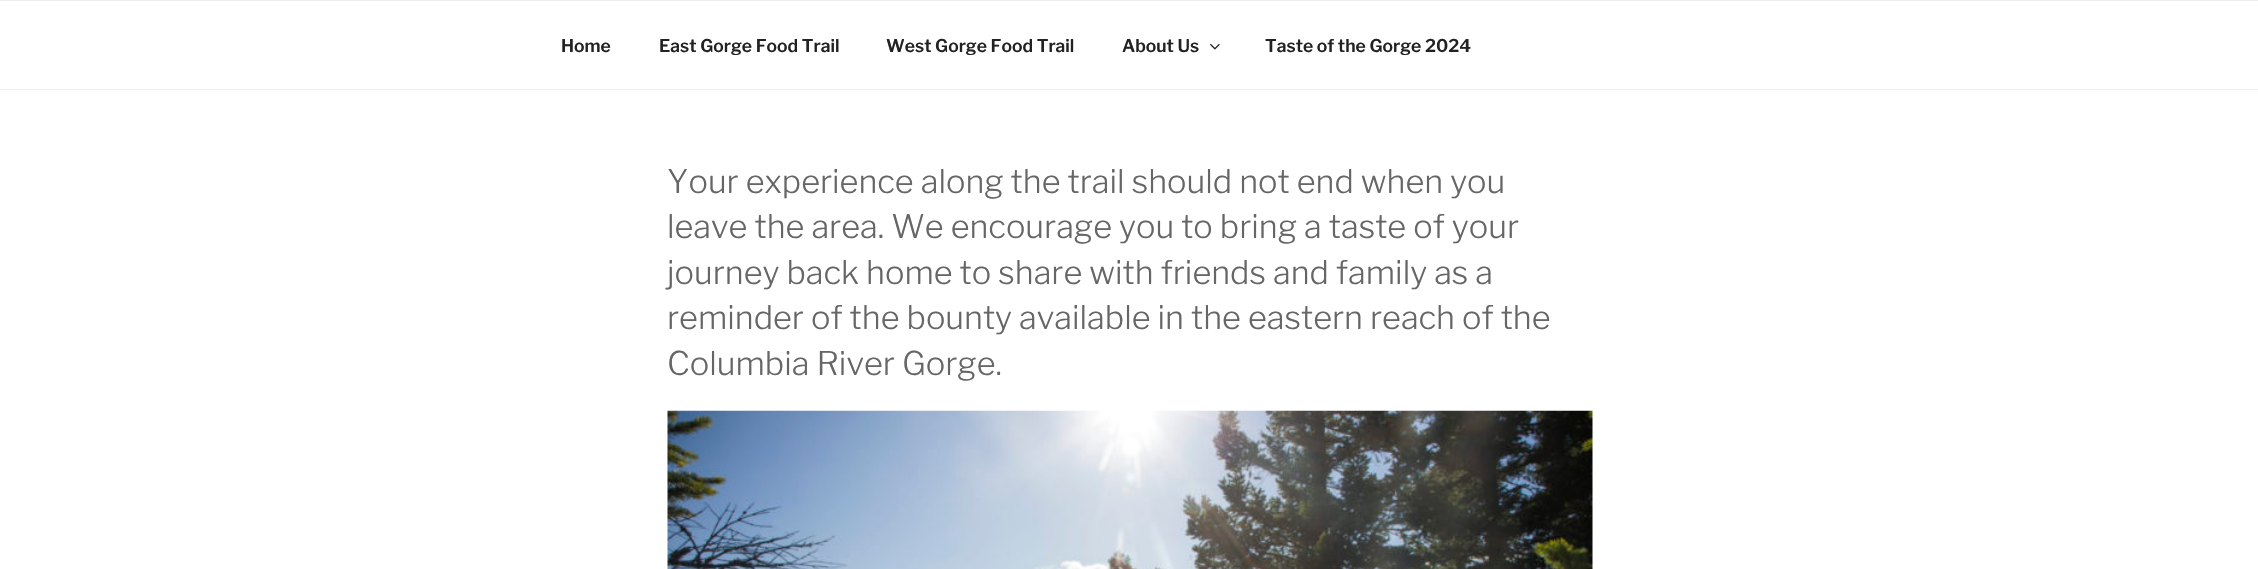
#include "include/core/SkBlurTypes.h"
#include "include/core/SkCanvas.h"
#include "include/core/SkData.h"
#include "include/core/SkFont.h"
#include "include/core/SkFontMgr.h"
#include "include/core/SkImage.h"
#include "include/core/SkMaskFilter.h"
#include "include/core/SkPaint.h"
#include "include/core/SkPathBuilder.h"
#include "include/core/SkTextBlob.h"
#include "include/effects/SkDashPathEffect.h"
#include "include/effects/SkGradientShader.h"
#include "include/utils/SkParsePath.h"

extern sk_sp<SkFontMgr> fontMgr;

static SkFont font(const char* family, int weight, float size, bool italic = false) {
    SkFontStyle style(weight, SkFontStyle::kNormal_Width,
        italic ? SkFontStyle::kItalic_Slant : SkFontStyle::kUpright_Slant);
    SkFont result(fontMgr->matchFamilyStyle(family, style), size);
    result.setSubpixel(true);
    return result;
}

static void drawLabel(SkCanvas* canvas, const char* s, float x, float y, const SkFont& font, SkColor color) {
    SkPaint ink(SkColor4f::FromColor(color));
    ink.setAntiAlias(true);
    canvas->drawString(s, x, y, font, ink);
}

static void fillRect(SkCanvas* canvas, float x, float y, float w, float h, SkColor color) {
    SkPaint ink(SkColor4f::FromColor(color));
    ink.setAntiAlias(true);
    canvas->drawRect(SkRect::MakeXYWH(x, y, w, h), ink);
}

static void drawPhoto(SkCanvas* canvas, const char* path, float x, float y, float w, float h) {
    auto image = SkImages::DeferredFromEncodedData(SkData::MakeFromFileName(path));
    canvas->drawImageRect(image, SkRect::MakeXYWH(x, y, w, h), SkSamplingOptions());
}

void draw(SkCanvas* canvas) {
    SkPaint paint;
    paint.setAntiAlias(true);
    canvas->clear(0xFFFFFFFF);
    fillRect(canvas, 0, 0, 2258, 1, 0xFFEEEEEE);
    fillRect(canvas, 0, 89, 2258, 1, 0xFFEEEEEE);
    SkFont font1 = font("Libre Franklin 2", 100, 17.5f);
    drawLabel(canvas, "Home", 561, 52, font1, 0xFF222222);
    drawLabel(canvas, "East Gorge Food Trail", 659, 52, font1, 0xFF222222);
    drawLabel(canvas, "West Gorge Food Trail", 886, 52, font1, 0xFF222222);
    drawLabel(canvas, "About Us", 1122, 52, font1, 0xFF222222);
    drawPhoto(canvas, "assets/img1.png", 1210, 43, 10, 7);
    drawLabel(canvas, "Taste of the Gorge 2024", 1265, 52, font1, 0xFF222222);
    SkFont font2 = font("Libre Franklin", 100, 32.5f);
    drawLabel(canvas, "Your experience along the trail should not end when you", 667, 193, font2, 0xFF666666);
    drawLabel(canvas, "leave the area. We encourage you to bring a taste of your", 667, 238, font2, 0xFF666666);
    drawLabel(canvas, "journey back home to share with friends and family as a", 667, 284, font2, 0xFF666666);
    drawLabel(canvas, "reminder of the bounty available in the eastern reach of the", 667, 329, font2, 0xFF666666);
    drawLabel(canvas, "Columbia River Gorge.", 667, 375, font2, 0xFF666666);
    drawPhoto(canvas, "assets/img2.png", 667, 410, 926, 159);
}
